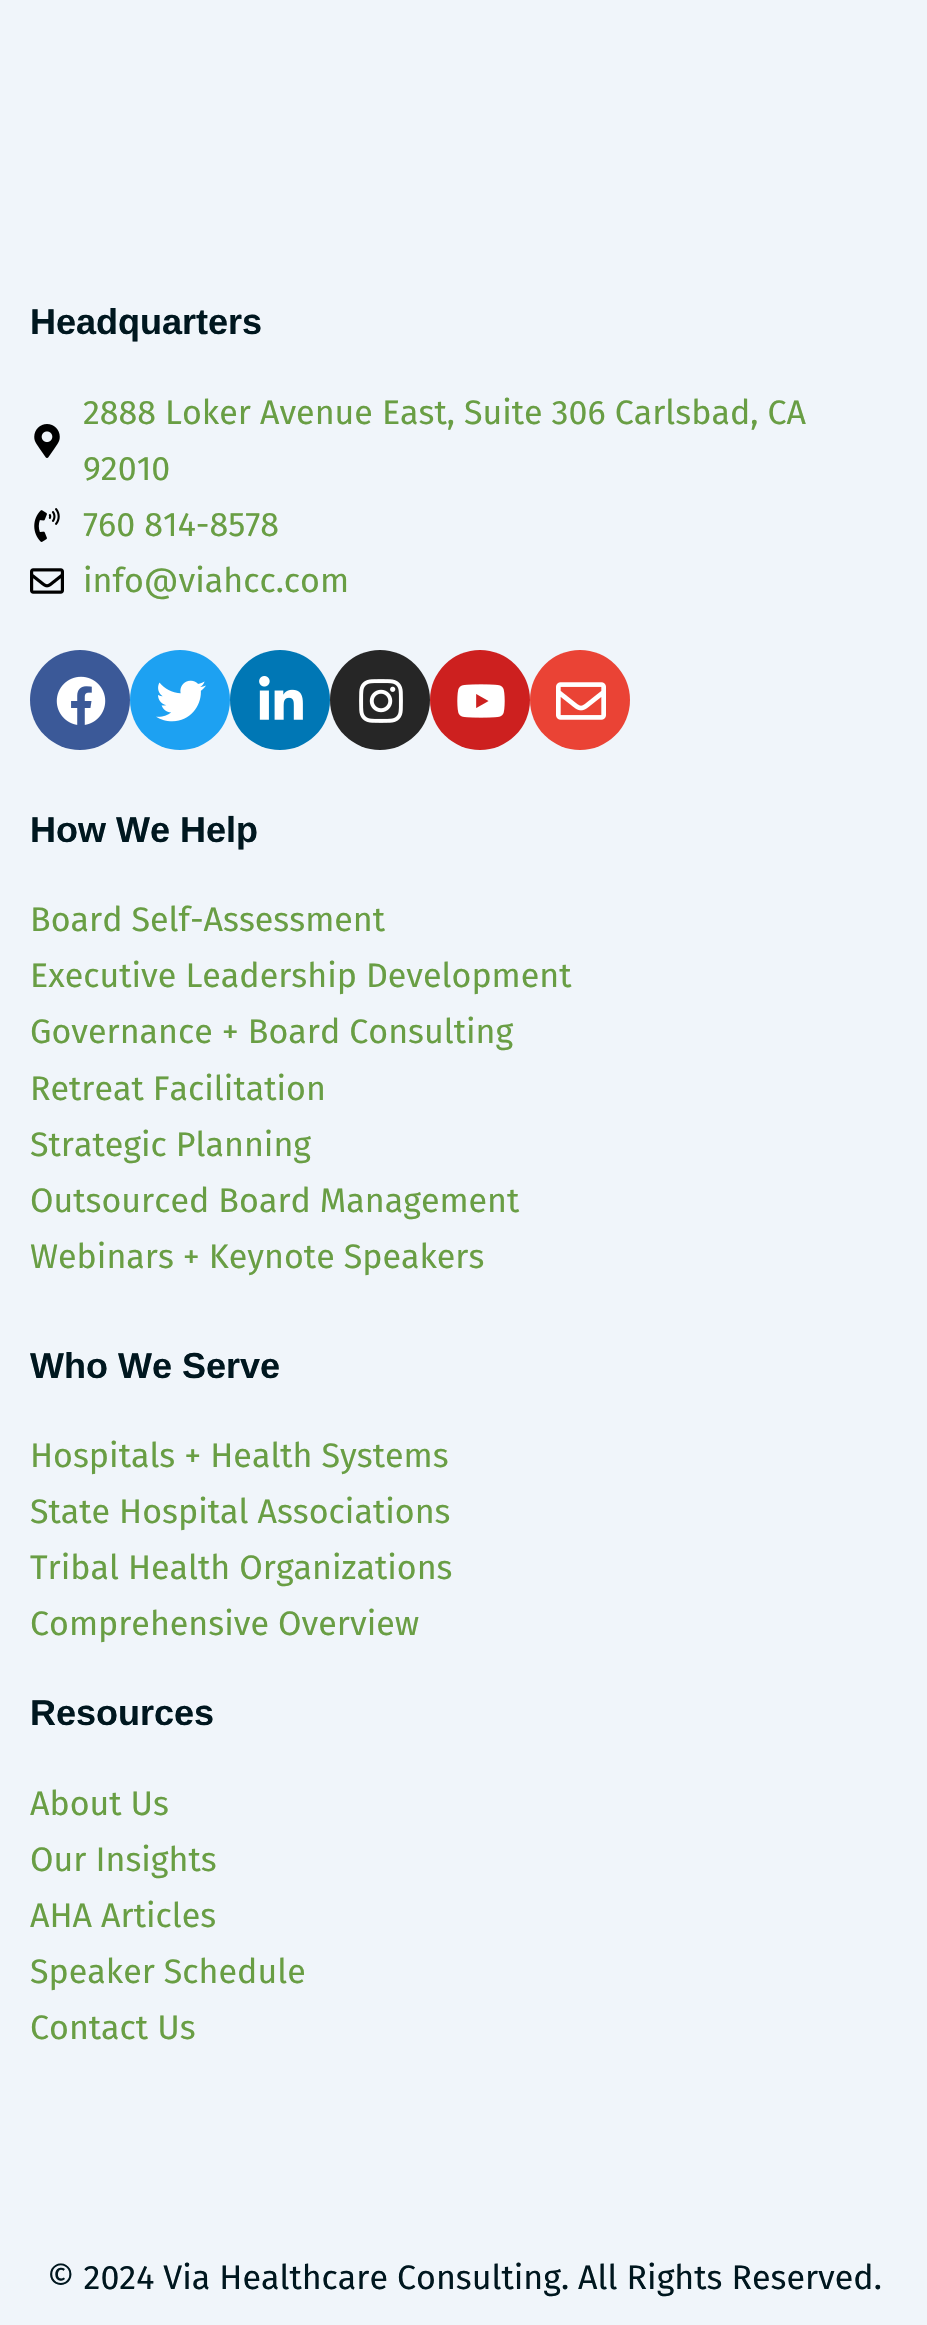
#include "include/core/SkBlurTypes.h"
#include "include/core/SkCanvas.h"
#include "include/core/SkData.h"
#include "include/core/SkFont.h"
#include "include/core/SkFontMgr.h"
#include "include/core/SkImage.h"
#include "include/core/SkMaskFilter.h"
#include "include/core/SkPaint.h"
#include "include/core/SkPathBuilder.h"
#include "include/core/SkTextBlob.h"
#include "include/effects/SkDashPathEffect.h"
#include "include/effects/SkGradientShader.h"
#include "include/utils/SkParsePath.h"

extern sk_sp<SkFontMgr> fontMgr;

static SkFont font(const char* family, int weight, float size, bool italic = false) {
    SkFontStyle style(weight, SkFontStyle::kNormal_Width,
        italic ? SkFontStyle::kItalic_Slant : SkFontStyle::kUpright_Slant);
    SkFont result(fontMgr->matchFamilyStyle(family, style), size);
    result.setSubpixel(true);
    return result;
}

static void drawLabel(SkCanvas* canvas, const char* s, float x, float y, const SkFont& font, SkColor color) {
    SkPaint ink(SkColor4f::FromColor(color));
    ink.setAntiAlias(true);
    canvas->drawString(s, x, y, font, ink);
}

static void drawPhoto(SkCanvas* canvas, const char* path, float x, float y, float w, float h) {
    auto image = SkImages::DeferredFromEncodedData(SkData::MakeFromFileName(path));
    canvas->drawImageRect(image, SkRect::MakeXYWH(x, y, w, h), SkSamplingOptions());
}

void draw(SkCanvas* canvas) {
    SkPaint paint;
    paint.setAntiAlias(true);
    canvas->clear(0xFFF0F5FA);
    SkFont font1 = font("Liberation Sans", 700, 36);
    drawLabel(canvas, "Headquarters", 30, 334, font1, 0xFF00171F);
    drawPhoto(canvas, "assets/img1.png", 34, 424, 26, 34);
    SkFont font2 = font("Fira Sans", 400, 34);
    drawLabel(canvas, "2888 Loker Avenue East, Suite 306 Carlsbad, CA", 83, 424, font2, 0xFF699E44);
    drawLabel(canvas, "92010", 83, 480, font2, 0xFF699E44);
    drawPhoto(canvas, "assets/img2.png", 34, 508, 26, 34);
    drawLabel(canvas, "760 814-8578", 83, 536, font2, 0xFF699E44);
    drawPhoto(canvas, "assets/img3.png", 30, 568, 34, 26);
    drawLabel(canvas, "info@viahcc.com", 83, 592, font2, 0xFF699E44);
    paint.setColor(0xFF3B5998);
    canvas->drawCircle(80, 700, 50, paint);
    drawPhoto(canvas, "assets/img4.png", 56, 676, 50, 49);
    paint.setColor(0xFF1DA1F2);
    canvas->drawCircle(180, 700, 50, paint);
    drawPhoto(canvas, "assets/img5.png", 156, 680, 50, 42);
    paint.setColor(0xFF0077B5);
    canvas->drawCircle(280, 700, 50, paint);
    drawPhoto(canvas, "assets/img6.png", 259, 676, 44, 44);
    paint.setColor(0xFF262626);
    canvas->drawCircle(380, 700, 50, paint);
    drawPhoto(canvas, "assets/img7.png", 359, 679, 44, 44);
    paint.setColor(0xFFCD201F);
    canvas->drawCircle(480, 700, 50, paint);
    drawPhoto(canvas, "assets/img8.png", 457, 684, 48, 34);
    paint.setColor(0xFFEA4335);
    canvas->drawCircle(580, 700, 50, paint);
    drawPhoto(canvas, "assets/img9.png", 556, 682, 50, 38);
    drawLabel(canvas, "How We Help", 30, 842, font1, 0xFF00171F);
    drawLabel(canvas, "Board Self-Assessment", 30, 931, font2, 0xFF699E44);
    drawLabel(canvas, "Executive Leadership Development", 30, 987, font2, 0xFF699E44);
    drawLabel(canvas, "Governance + Board Consulting", 30, 1043, font2, 0xFF699E44);
    drawLabel(canvas, "Retreat Facilitation", 30, 1100, font2, 0xFF699E44);
    drawLabel(canvas, "Strategic Planning", 30, 1156, font2, 0xFF699E44);
    drawLabel(canvas, "Outsourced Board Management", 30, 1212, font2, 0xFF699E44);
    drawLabel(canvas, "Webinars + Keynote Speakers", 30, 1268, font2, 0xFF699E44);
    drawLabel(canvas, "Who We Serve", 30, 1378, font1, 0xFF00171F);
    drawLabel(canvas, "Hospitals + Health Systems", 30, 1467, font2, 0xFF699E44);
    drawLabel(canvas, "State Hospital Associations", 30, 1523, font2, 0xFF699E44);
    drawLabel(canvas, "Tribal Health Organizations", 30, 1579, font2, 0xFF699E44);
    drawLabel(canvas, "Comprehensive Overview", 30, 1635, font2, 0xFF699E44);
    drawLabel(canvas, "Resources", 30, 1725, font1, 0xFF00171F);
    drawLabel(canvas, "About Us", 30, 1815, font2, 0xFF699E44);
    drawLabel(canvas, "Our Insights", 30, 1871, font2, 0xFF699E44);
    drawLabel(canvas, "AHA Articles", 30, 1927, font2, 0xFF699E44);
    drawLabel(canvas, "Speaker Schedule", 30, 1983, font2, 0xFF699E44);
    drawLabel(canvas, "Contact Us", 30, 2039, font2, 0xFF699E44);
    drawLabel(canvas, "© 2024 Via Healthcare Consulting. All Rights Reserved.", 47, 2289, font2, 0xFF00171F);
}
